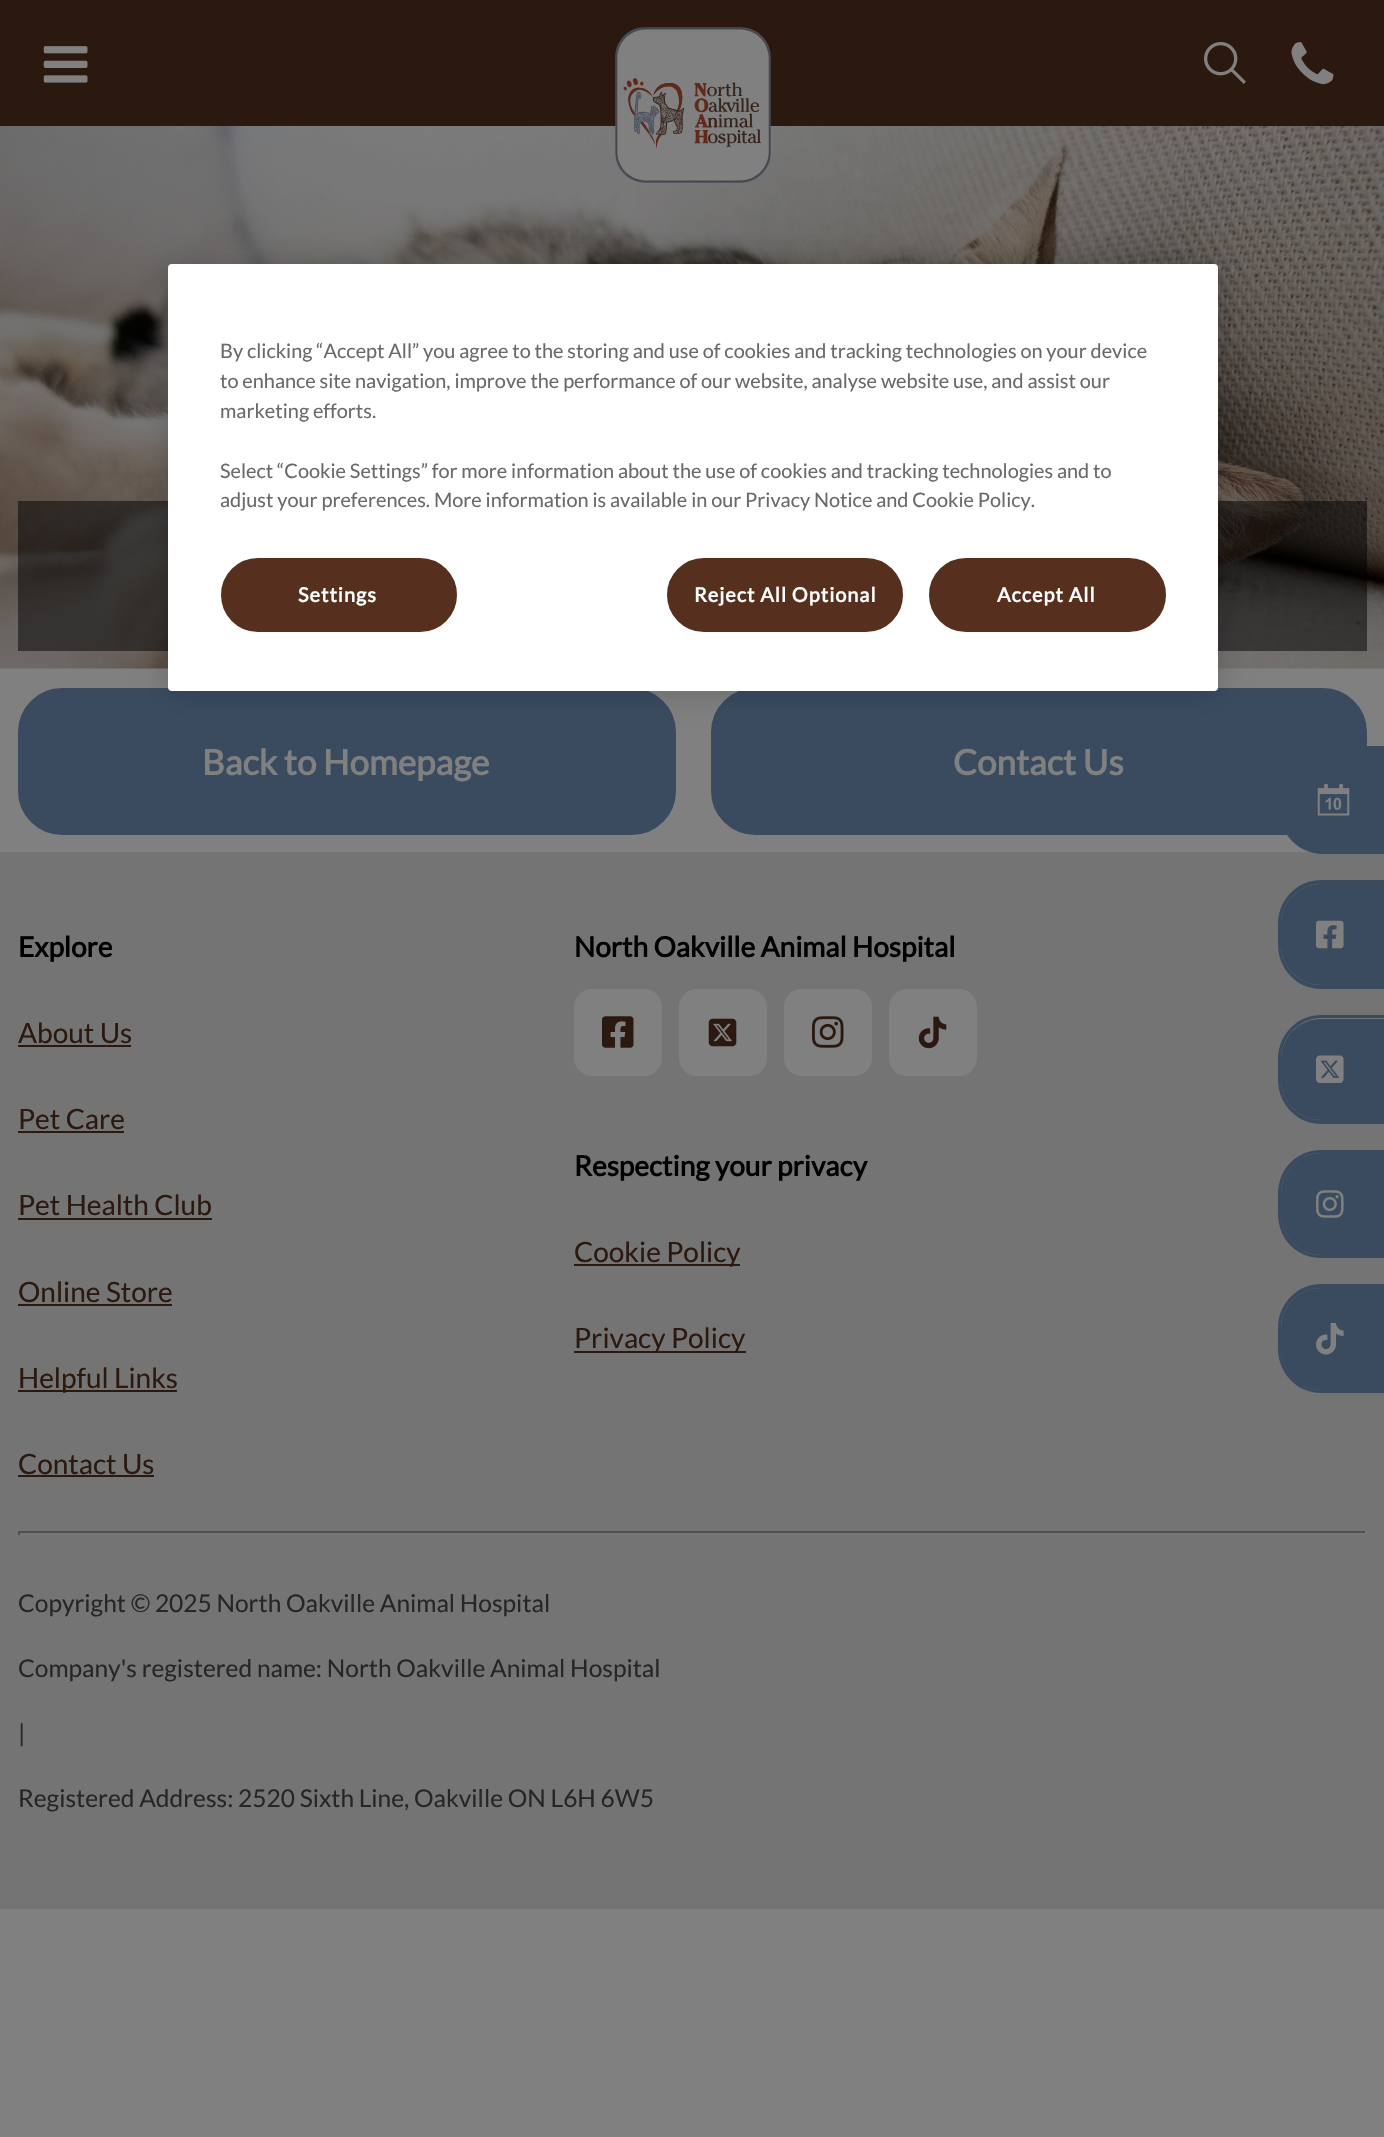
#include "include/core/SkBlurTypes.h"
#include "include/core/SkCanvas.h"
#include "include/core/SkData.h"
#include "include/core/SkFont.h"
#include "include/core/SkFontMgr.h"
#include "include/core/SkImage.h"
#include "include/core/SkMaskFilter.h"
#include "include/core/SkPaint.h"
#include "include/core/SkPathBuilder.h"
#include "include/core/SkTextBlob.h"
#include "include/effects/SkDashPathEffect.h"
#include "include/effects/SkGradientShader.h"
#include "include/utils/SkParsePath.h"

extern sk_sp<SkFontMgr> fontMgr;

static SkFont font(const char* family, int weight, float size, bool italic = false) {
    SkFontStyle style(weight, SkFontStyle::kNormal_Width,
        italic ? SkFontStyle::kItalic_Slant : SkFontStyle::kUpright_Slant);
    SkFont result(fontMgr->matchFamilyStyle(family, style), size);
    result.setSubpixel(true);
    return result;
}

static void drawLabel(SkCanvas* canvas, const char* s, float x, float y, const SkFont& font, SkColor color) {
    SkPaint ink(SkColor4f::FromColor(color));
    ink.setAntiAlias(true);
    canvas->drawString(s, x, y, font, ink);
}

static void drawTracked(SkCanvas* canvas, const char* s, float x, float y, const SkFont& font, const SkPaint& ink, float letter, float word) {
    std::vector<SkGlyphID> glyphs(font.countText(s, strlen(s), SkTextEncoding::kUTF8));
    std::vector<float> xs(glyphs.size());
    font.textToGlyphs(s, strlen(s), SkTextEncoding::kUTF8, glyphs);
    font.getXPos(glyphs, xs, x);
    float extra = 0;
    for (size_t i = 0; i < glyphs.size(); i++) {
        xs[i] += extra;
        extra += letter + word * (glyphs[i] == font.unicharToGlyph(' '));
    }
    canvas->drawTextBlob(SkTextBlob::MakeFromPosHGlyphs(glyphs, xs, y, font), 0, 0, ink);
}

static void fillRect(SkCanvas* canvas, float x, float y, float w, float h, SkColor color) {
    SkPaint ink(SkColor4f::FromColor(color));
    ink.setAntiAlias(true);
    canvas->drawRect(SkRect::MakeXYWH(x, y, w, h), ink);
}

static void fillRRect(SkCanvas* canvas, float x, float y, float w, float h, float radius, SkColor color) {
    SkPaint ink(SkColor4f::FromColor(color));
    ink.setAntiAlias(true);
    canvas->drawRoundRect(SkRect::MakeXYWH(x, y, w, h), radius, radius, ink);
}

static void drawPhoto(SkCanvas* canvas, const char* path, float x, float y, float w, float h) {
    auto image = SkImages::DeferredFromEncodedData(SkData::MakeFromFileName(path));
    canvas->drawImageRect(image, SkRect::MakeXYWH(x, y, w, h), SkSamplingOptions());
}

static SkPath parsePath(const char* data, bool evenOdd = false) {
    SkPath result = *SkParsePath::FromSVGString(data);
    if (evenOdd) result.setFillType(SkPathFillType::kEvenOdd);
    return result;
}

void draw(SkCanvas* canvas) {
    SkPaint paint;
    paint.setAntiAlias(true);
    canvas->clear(0xFF808080);
    drawPhoto(canvas, "assets/img5.png", 0, 126, 1384, 543);
    fillRect(canvas, 18, 501, 1349, 150, 0x80000000);
    paint.setColor(0xFF3A4B60);
    canvas->drawRoundRect(SkRect::MakeXYWH(20, 690, 654, 143), 42, 42, paint);
    paint.setStroke(true);
    paint.setStrokeWidth(4);
    canvas->drawRoundRect(SkRect::MakeXYWH(20, 690, 654, 143), 42, 42, paint);
    paint.setStroke(false);
    canvas->drawRoundRect(SkRect::MakeXYWH(713, 690, 652, 143), 42, 42, paint);
    paint.setStroke(true);
    canvas->drawRoundRect(SkRect::MakeXYWH(713, 690, 652, 143), 42, 42, paint);
    paint.setStroke(false);
    paint.setColor(0x33000000);
    paint.setMaskFilter(SkMaskFilter::MakeBlur(kNormal_SkBlurStyle, 16));
    canvas->drawRoundRect(SkRect::MakeXYWH(168, 264, 1050, 427), 4, 4, paint);
    paint.setMaskFilter(nullptr);
    fillRRect(canvas, 168, 264, 1050, 427, 4, 0xFFFFFFFF);
    SkFont font1 = font("Lato", 400, 19.9f);
    drawLabel(canvas, "By clicking “Accept All” you agree to the storing and use of cookies and tracking technologies on your device", 220, 358, font1, 0xFF696969);
    drawLabel(canvas, "to enhance site navigation, improve the performance of our website, analyse website use, and assist our", 220, 388, font1, 0xFF696969);
    drawLabel(canvas, "marketing efforts.", 220, 418, font1, 0xFF696969);
    drawLabel(canvas, "Select “Cookie Settings” for more information about the use of cookies and tracking technologies and to", 220, 478, font1, 0xFF696969);
    drawLabel(canvas, "adjust your preferences. More information is available in our Privacy Notice and Cookie Policy.", 220, 507, font1, 0xFF696969);
    paint.setColor(0xFF562F1E);
    canvas->drawRoundRect(SkRect::MakeXYWH(222, 559, 234, 72), 36, 36, paint);
    paint.setStroke(true);
    paint.setStrokeWidth(2);
    canvas->drawRoundRect(SkRect::MakeXYWH(222, 559, 234, 72), 36, 36, paint);
    SkFont font2 = font("Lato", 700, 19.9f);
    paint.setStroke(false);
    paint.setColor(0xFFFFFFFF);
    drawTracked(canvas, "Settings", 298, 602, font2, paint, 1, 0);
    paint.setColor(0xFF562F1E);
    canvas->drawRoundRect(SkRect::MakeXYWH(668, 559, 234, 72), 36, 36, paint);
    paint.setStroke(true);
    canvas->drawRoundRect(SkRect::MakeXYWH(668, 559, 234, 72), 36, 36, paint);
    paint.setStroke(false);
    paint.setColor(0xFFFFFFFF);
    drawTracked(canvas, "Reject All Optional", 694, 602, font2, paint, 1, 0);
    paint.setColor(0xFF562F1E);
    canvas->drawRoundRect(SkRect::MakeXYWH(930, 559, 235, 72), 36, 36, paint);
    paint.setStroke(true);
    canvas->drawRoundRect(SkRect::MakeXYWH(930, 559, 235, 72), 36, 36, paint);
    paint.setStroke(false);
    paint.setColor(0xFFFFFFFF);
    drawTracked(canvas, "Accept All", 997, 602, font2, paint, 1, 0);
    fillRect(canvas, 0, 0, 1384, 126, 0xFF2B180F);
    drawPhoto(canvas, "assets/img1.png", 43, 46, 45, 37);
    drawPhoto(canvas, "assets/img2.png", 615, 27, 156, 156);
    drawPhoto(canvas, "assets/img3.png", 1204, 42, 42, 42);
    drawPhoto(canvas, "assets/img4.png", 1291, 42, 43, 43);
    SkFont font3 = font("Lato", 700, 35);
    drawLabel(canvas, "Back to Homepage", 202, 775, font3, 0xFF808080);
    drawLabel(canvas, "Contact Us", 953, 775, font3, 0xFF808080);
    paint.setColor(0xFF3A4B60);
    canvas->drawPath(parsePath("M1323 749H1384V851H1323C1301 851 1283 833 1283 811V789C1283 767 1301 749 1323 749Z"), paint);
    fillRect(canvas, 0, 852, 1384, 1057, 0xFF747474);
    canvas->drawPath(parsePath("M1323 746H1384V854H1323C1299 854 1279 834 1279 810V789C1279 765 1299 746 1323 746ZM1323 749H1384V850H1323C1301 850 1283 832 1283 810V789C1283 767 1301 749 1323 749Z", true), paint);
    drawPhoto(canvas, "assets/img6.png", 1317, 784, 33, 32);
    canvas->drawPath(parsePath("M1321 884H1384V985H1321C1299 985 1281 967 1281 945V924C1281 902 1299 884 1321 884Z"), paint);
    canvas->drawPath(parsePath("M1321 880H1384V989H1321C1297 989 1278 969 1278 945V924C1278 900 1297 880 1321 880ZM1321 884H1384V985H1321C1299 985 1281 967 1281 945V924C1281 902 1299 884 1321 884Z", true), paint);
    drawPhoto(canvas, "assets/img7.png", 1316, 920, 28, 29);
    canvas->drawPath(parsePath("M1321 1019H1384V1120H1321C1299 1120 1281 1102 1281 1080V1059C1281 1037 1299 1019 1321 1019Z"), paint);
    canvas->drawPath(parsePath("M1321 1015H1384V1124H1321C1297 1124 1278 1104 1278 1080V1059C1278 1035 1297 1015 1321 1015ZM1321 1018H1384V1120H1321C1299 1120 1281 1102 1281 1080V1059C1281 1037 1299 1018 1321 1018Z", true), paint);
    drawPhoto(canvas, "assets/img8.png", 1316, 1055, 28, 28);
    canvas->drawPath(parsePath("M1321 1153H1384V1255H1321C1299 1255 1281 1237 1281 1215V1193C1281 1171 1299 1153 1321 1153Z"), paint);
    canvas->drawPath(parsePath("M1321 1150H1384V1258H1321C1297 1258 1278 1239 1278 1214V1194C1278 1169 1297 1150 1321 1150ZM1321 1153H1384V1255H1321C1299 1255 1281 1237 1281 1214V1194C1281 1171 1299 1153 1321 1153Z", true), paint);
    drawPhoto(canvas, "assets/img9.png", 1316, 1190, 28, 28);
    canvas->drawPath(parsePath("M1321 1288H1384V1390H1321C1299 1390 1281 1372 1281 1350V1328C1281 1306 1299 1288 1321 1288Z"), paint);
    canvas->drawPath(parsePath("M1321 1284H1384V1393H1321C1297 1393 1278 1373 1278 1349V1328C1278 1304 1297 1284 1321 1284ZM1321 1288H1384V1390H1321C1299 1390 1281 1371 1281 1349V1328C1281 1306 1299 1288 1321 1288Z", true), paint);
    drawPhoto(canvas, "assets/img10.png", 1316, 1323, 28, 32);
    SkFont font4 = font("Lato", 700, 28);
    drawLabel(canvas, "Explore", 18, 957, font4, 0xFF000000);
    SkFont font5 = font("Lato", 400, 28);
    drawLabel(canvas, "About Us", 18, 1043, font5, 0xFF2B180F);
    fillRect(canvas, 18, 1045, 113, 2, 0xFF2B180F);
    drawLabel(canvas, "Pet Care", 18, 1129, font5, 0xFF2B180F);
    fillRect(canvas, 18, 1131, 106, 2, 0xFF2B180F);
    drawLabel(canvas, "Pet Health Club", 18, 1215, font5, 0xFF2B180F);
    fillRect(canvas, 18, 1218, 194, 2, 0xFF2B180F);
    drawLabel(canvas, "Online Store", 18, 1302, font5, 0xFF2B180F);
    fillRect(canvas, 18, 1304, 154, 2, 0xFF2B180F);
    fillRect(canvas, 18, 1390, 159, 2, 0xFF2B180F);
    drawLabel(canvas, "Helpful Links", 18, 1388, font5, 0xFF2B180F);
    drawLabel(canvas, "Contact Us", 18, 1474, font5, 0xFF2B180F);
    fillRect(canvas, 18, 1475, 136, 2, 0xFF2B180F);
    drawLabel(canvas, "North Oakville Animal Hospital", 574, 957, font4, 0xFF000000);
    fillRRect(canvas, 574, 989, 88, 87, 18, 0xFF808080);
    drawPhoto(canvas, "assets/img11.png", 602, 1016, 32, 32);
    fillRRect(canvas, 679, 989, 88, 87, 18, 0xFF808080);
    drawPhoto(canvas, "assets/img12.png", 708, 1018, 29, 29);
    fillRRect(canvas, 784, 989, 88, 87, 18, 0xFF808080);
    drawPhoto(canvas, "assets/img13.png", 812, 1016, 32, 32);
    fillRRect(canvas, 889, 989, 88, 87, 18, 0xFF808080);
    drawPhoto(canvas, "assets/img14.png", 918, 1016, 29, 33);
    drawLabel(canvas, "Respecting your privacy", 574, 1176, font4, 0xFF000000);
    fillRect(canvas, 574, 1264, 166, 2, 0xFF2B180F);
    drawLabel(canvas, "Cookie Policy", 574, 1262, font5, 0xFF2B180F);
    fillRect(canvas, 574, 1351, 172, 2, 0xFF2B180F);
    drawLabel(canvas, "Privacy Policy", 574, 1348, font5, 0xFF2B180F);
    fillRect(canvas, 18, 1531, 1349, 2, 0xFF505050);
    fillRect(canvas, 1365, 1531, 2, 4, 0xFF777777);
    fillRect(canvas, 18, 1533, 1349, 2, 0xFF777777);
    fillRect(canvas, 18, 1531, 2, 4, 0xFF505050);
    SkFont font6 = font("Lato", 400, 24.5f);
    drawLabel(canvas, "Copyright © 2025 North Oakville Animal Hospital", 18, 1612, font6, 0xFF262626);
    drawLabel(canvas, "Company's registered name: North Oakville Animal Hospital", 18, 1677, font6, 0xFF262626);
    drawLabel(canvas, "|", 18, 1742, font6, 0xFF262626);
    drawLabel(canvas, "Registered Address: 2520 Sixth Line, Oakville ON L6H 6W5", 18, 1807, font6, 0xFF262626);
}
